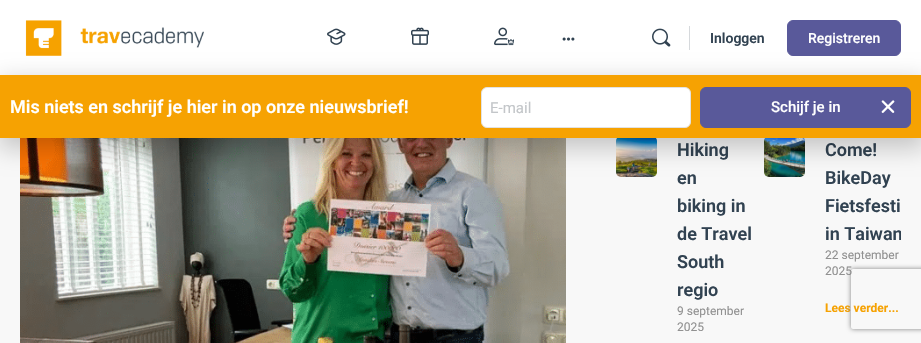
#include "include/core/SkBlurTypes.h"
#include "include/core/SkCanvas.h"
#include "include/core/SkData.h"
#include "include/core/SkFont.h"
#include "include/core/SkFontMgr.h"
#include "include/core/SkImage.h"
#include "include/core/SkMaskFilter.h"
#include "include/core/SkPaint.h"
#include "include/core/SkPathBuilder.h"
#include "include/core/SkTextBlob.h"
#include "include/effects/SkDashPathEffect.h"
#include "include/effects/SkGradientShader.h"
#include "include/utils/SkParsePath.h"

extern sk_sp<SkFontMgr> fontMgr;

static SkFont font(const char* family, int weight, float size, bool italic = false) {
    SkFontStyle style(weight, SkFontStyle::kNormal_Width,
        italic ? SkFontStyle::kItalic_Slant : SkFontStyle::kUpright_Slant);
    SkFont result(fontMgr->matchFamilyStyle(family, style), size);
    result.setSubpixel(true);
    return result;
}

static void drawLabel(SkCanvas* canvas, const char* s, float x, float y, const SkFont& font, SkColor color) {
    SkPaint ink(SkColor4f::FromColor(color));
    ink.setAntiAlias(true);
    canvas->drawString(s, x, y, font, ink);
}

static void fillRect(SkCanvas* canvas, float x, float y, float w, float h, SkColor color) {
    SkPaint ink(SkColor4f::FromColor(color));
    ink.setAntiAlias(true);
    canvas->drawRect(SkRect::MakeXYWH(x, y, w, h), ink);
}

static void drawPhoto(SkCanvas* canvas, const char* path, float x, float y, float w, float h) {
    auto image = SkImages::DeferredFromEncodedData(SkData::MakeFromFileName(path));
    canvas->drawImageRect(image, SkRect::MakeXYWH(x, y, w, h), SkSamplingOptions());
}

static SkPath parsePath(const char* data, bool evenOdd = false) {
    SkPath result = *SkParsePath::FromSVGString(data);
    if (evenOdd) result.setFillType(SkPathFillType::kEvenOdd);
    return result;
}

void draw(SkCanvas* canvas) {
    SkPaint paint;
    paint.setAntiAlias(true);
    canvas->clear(0xFFF8F8F8);
    fillRect(canvas, 0, 0, 921, 75, 0xFFFFFFFF);
    drawPhoto(canvas, "assets/img1.png", 25, 20, 179, 36);
    drawPhoto(canvas, "assets/img2.png", 327, 28, 19, 17);
    drawPhoto(canvas, "assets/img3.png", 411, 27, 18, 18);
    drawPhoto(canvas, "assets/img4.png", 494, 27, 20, 19);
    drawPhoto(canvas, "assets/img5.png", 562, 37, 13, 4);
    drawPhoto(canvas, "assets/img6.png", 652, 28, 19, 19);
    fillRect(canvas, 689, 26, 1, 24, 0xFFD6D9DC);
    SkFont font1 = font("Roboto", 600, 14);
    drawLabel(canvas, "Inloggen", 710, 43, font1, 0xFF314251);
    paint.setColor(0xFF59599A);
    canvas->drawRoundRect(SkRect::MakeXYWH(787.5f, 20.5f, 113, 35), 5.5f, 5.5f, paint);
    paint.setStroke(true);
    paint.setStrokeWidth(1);
    canvas->drawRoundRect(SkRect::MakeXYWH(787.5f, 20.5f, 113, 35), 5.5f, 5.5f, paint);
    SkFont font2 = font("Roboto", 500, 14);
    drawLabel(canvas, "Registreren", 808, 43, font2, 0xFFFFFFFF);
    drawPhoto(canvas, "assets/img7.png", 20, 138, 546, 205);
    drawPhoto(canvas, "assets/img8.png", 616, 138, 41, 39);
    SkFont font3 = font("Roboto", 600, 18);
    drawLabel(canvas, "Hiking", 677, 156, font3, 0xFF314251);
    drawLabel(canvas, "en", 677, 184, font3, 0xFF314251);
    drawLabel(canvas, "biking in", 677, 212, font3, 0xFF314251);
    drawLabel(canvas, "de Travel", 677, 240, font3, 0xFF314251);
    drawLabel(canvas, "South", 677, 268, font3, 0xFF314251);
    drawLabel(canvas, "regio", 677, 296, font3, 0xFF314251);
    SkFont font4 = font("Roboto", 400, 12);
    drawLabel(canvas, "9 september", 677, 315, font4, 0xFF919191);
    drawLabel(canvas, "2025", 677, 331, font4, 0xFF919191);
    drawPhoto(canvas, "assets/img9.png", 764, 138, 41, 39);
    drawLabel(canvas, "Come!", 825, 156, font3, 0xFF314251);
    drawLabel(canvas, "BikeDay", 825, 184, font3, 0xFF314251);
    drawLabel(canvas, "Fietsfesti", 825, 212, font3, 0xFF314251);
    canvas->save();
    canvas->clipRect(SkRect::MakeXYWH(764, 136, 137, 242));
    drawLabel(canvas, "in Taiwan", 825, 240, font3, 0xFF314251);
    canvas->restore();
    drawLabel(canvas, "22 september", 825, 259, font4, 0xFF919191);
    drawLabel(canvas, "2025", 825, 275, font4, 0xFF919191);
    SkFont font5 = font("Roboto", 700, 12);
    drawLabel(canvas, "Lees verder...", 825, 312, font5, 0xFFF6A202);
    canvas->save();
    canvas->clipPath(parsePath("M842 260H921V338H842ZM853 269H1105C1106 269 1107 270 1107 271V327C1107 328 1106 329 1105 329H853C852 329 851 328 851 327V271C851 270 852 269 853 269Z", true), true);
    paint.setStroke(false);
    paint.setColor(0xFF808080);
    paint.setMaskFilter(SkMaskFilter::MakeBlur(kNormal_SkBlurStyle, 2.5f));
    canvas->drawRoundRect(SkRect::MakeXYWH(851, 269, 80, 60), 2, 2, paint);
    paint.setMaskFilter(nullptr);
    canvas->restore();
    paint.setColor(0x33000000);
    paint.setMaskFilter(SkMaskFilter::MakeBlur(kNormal_SkBlurStyle, 11.5f));
    canvas->drawRect(SkRect::MakeXYWH(-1, 80, 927, 69), paint);
    paint.setMaskFilter(nullptr);
    fillRect(canvas, 0, 75, 921, 63, 0xFFF6A202);
    drawLabel(canvas, "Mis niets en schrijf je hier in op onze nieuwsbrief!", 10, 113, font3, 0xFFFFFFFF);
    paint.setColor(0xFFFFFFFF);
    canvas->drawRoundRect(SkRect::MakeXYWH(481.5f, 87.5f, 209, 40), 5.5f, 5.5f, paint);
    paint.setStroke(true);
    paint.setColor(0xFFE2E2E2);
    canvas->drawRoundRect(SkRect::MakeXYWH(481.5f, 87.5f, 209, 40), 5.5f, 5.5f, paint);
    SkFont font6 = font("Roboto", 400, 15);
    drawLabel(canvas, "E-mail", 490, 113, font6, 0xFFC3C6C9);
    paint.setStroke(false);
    paint.setColor(0xFF59599A);
    canvas->drawRoundRect(SkRect::MakeXYWH(700.5f, 87.5f, 210, 40), 5.5f, 5.5f, paint);
    paint.setStroke(true);
    canvas->drawRoundRect(SkRect::MakeXYWH(700.5f, 87.5f, 210, 40), 5.5f, 5.5f, paint);
    SkFont font7 = font("Roboto", 500, 15);
    drawLabel(canvas, "Schijf je in", 771, 112, font7, 0xFFFFFFFF);
    drawPhoto(canvas, "assets/img10.png", 881, 100, 14, 13);
}
